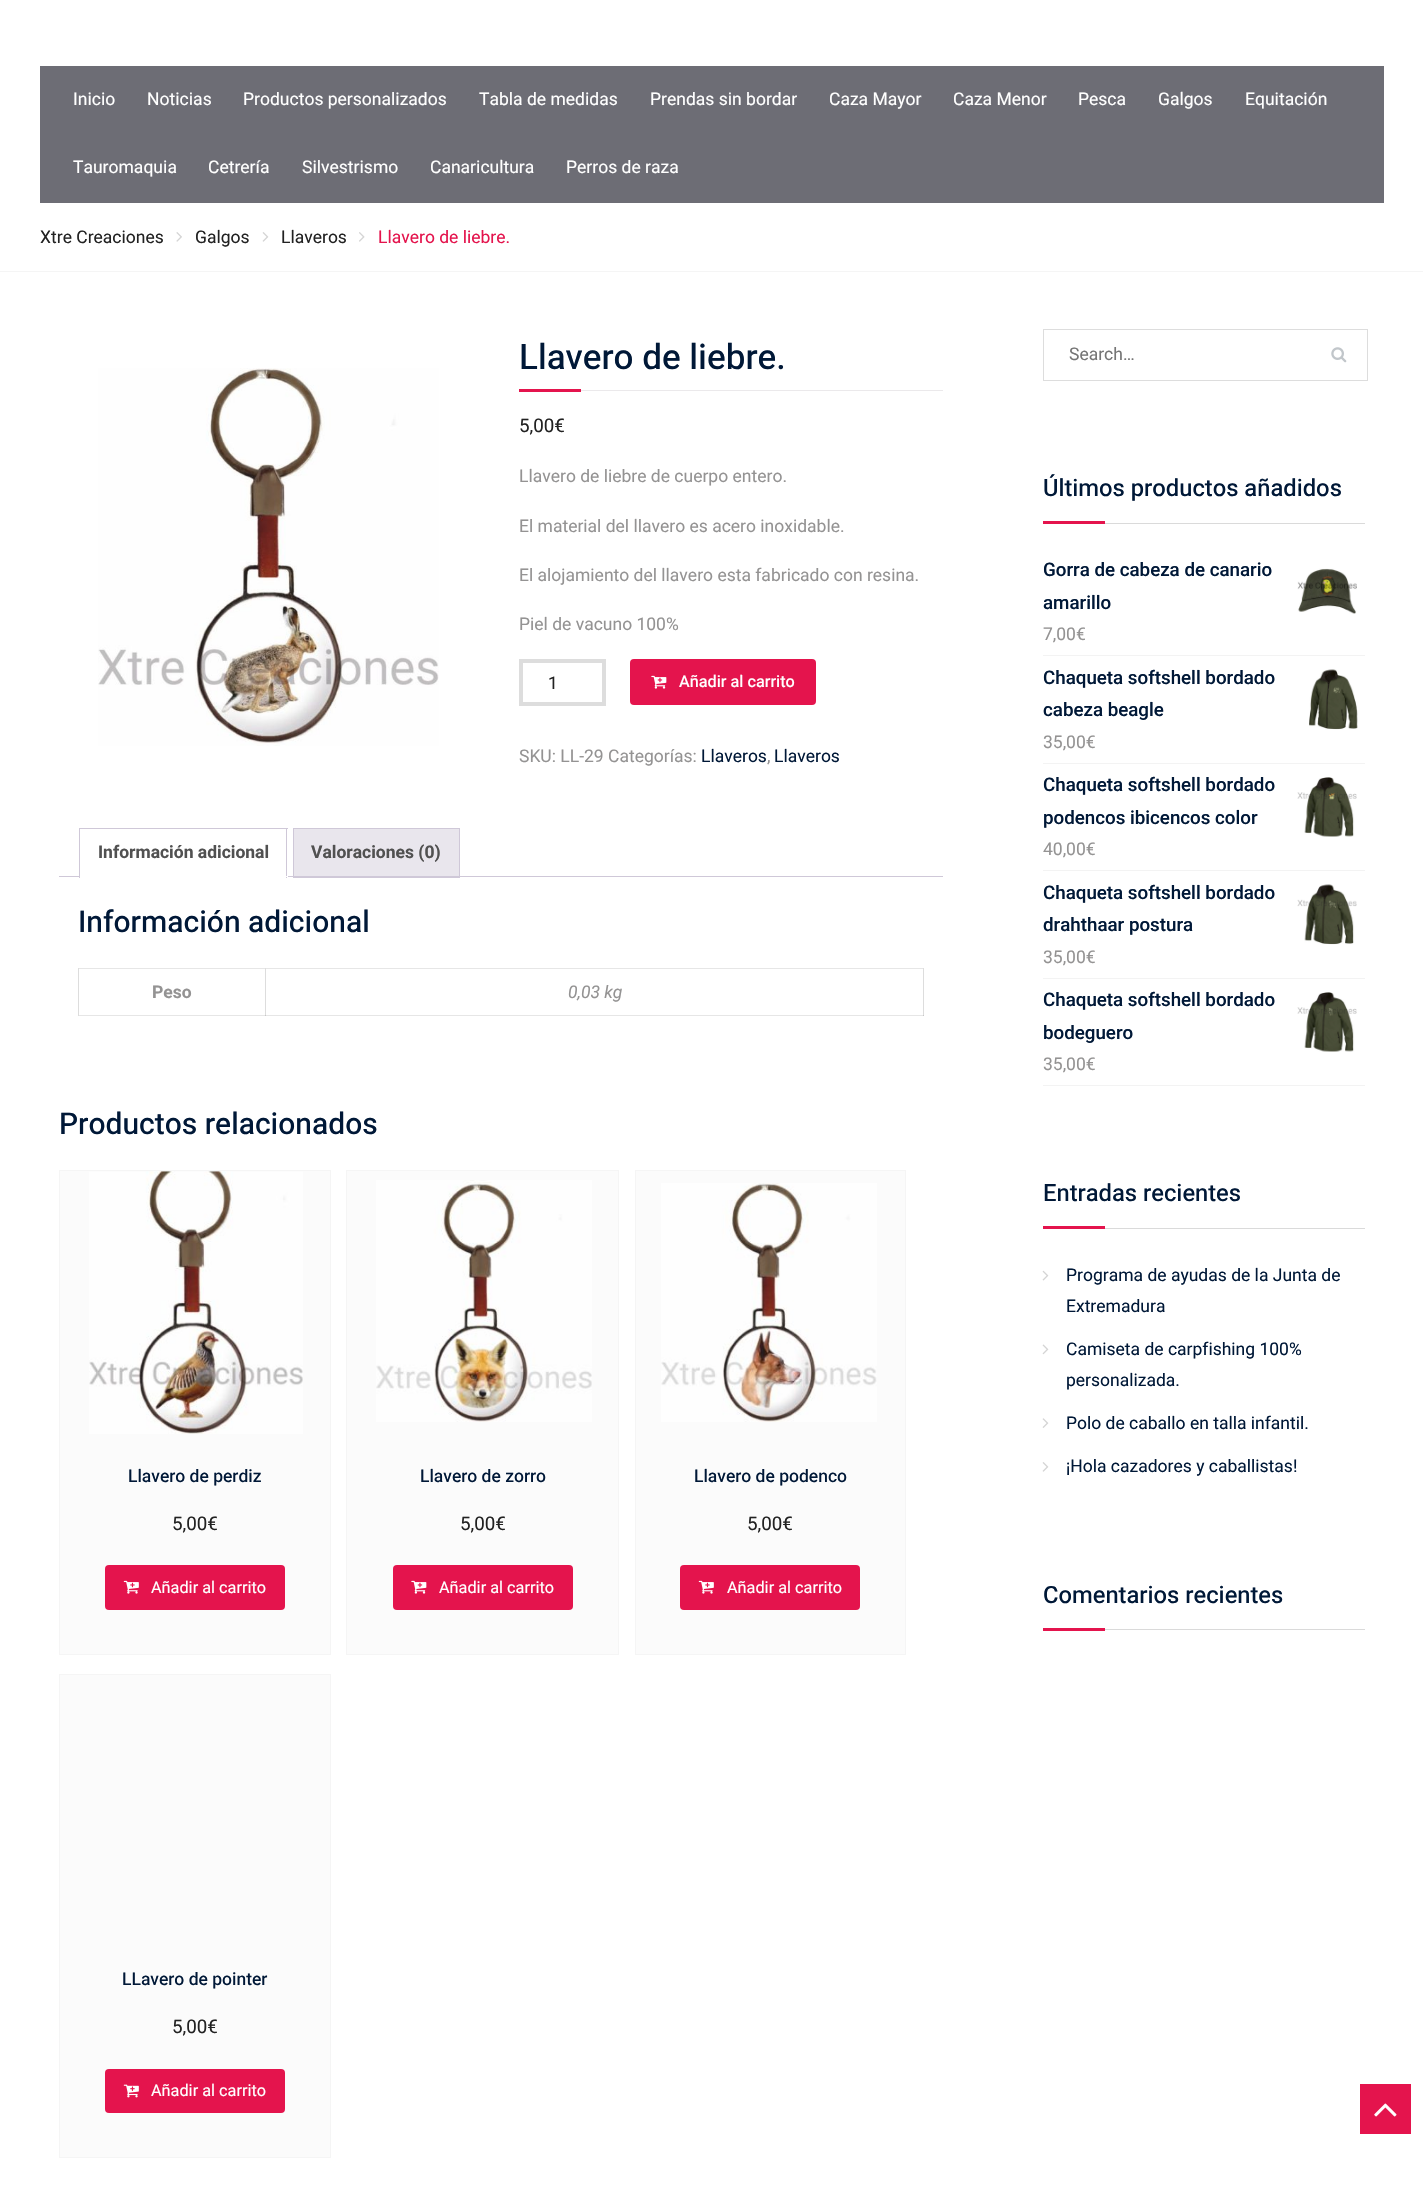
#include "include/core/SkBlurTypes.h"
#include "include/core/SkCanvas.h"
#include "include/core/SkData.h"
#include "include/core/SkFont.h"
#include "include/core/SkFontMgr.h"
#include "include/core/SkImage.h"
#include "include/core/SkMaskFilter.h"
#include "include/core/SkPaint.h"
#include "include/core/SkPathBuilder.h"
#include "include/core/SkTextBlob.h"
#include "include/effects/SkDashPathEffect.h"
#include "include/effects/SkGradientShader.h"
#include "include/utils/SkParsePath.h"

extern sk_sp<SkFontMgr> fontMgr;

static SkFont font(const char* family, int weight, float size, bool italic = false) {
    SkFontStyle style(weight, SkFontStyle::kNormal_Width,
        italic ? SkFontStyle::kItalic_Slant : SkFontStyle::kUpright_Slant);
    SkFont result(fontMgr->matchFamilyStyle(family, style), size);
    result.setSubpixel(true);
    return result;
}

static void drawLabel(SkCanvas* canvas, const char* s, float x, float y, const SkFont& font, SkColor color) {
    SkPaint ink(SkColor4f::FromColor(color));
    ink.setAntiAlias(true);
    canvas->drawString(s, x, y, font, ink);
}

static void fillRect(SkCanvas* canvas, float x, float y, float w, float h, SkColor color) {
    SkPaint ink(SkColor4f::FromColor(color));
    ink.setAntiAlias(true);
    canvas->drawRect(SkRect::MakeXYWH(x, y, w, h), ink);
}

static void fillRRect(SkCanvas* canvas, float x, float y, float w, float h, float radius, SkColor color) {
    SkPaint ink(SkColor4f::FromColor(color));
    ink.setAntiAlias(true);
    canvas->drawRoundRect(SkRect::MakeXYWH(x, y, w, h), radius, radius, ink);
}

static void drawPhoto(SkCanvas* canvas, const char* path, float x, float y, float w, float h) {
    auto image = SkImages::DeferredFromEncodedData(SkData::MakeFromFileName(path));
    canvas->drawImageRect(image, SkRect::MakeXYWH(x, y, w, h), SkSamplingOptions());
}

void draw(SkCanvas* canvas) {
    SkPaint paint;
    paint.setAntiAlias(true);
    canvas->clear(0xFFFFFFFF);
    fillRect(canvas, 40, 66, 1344, 137, 0xFF6D6D75);
    SkFont font1 = font("Heebo", 400, 17.5f);
    drawLabel(canvas, "Inicio", 73, 105, font1, 0xFFFFFFFF);
    drawLabel(canvas, "Noticias", 147, 105, font1, 0xFFFFFFFF);
    drawLabel(canvas, "Productos personalizados", 243, 105, font1, 0xFFFFFFFF);
    drawLabel(canvas, "Tabla de medidas", 479, 105, font1, 0xFFFFFFFF);
    drawLabel(canvas, "Prendas sin bordar", 650, 105, font1, 0xFFFFFFFF);
    drawLabel(canvas, "Caza Mayor", 829, 105, font1, 0xFFFFFFFF);
    drawLabel(canvas, "Caza Menor", 953, 105, font1, 0xFFFFFFFF);
    drawLabel(canvas, "Pesca", 1078, 105, font1, 0xFFFFFFFF);
    drawLabel(canvas, "Galgos", 1158, 105, font1, 0xFFFFFFFF);
    drawLabel(canvas, "Equitación", 1245, 105, font1, 0xFFFFFFFF);
    drawLabel(canvas, "Tauromaquia", 73, 173, font1, 0xFFFFFFFF);
    drawLabel(canvas, "Cetrería", 208, 173, font1, 0xFFFFFFFF);
    drawLabel(canvas, "Silvestrismo", 302, 173, font1, 0xFFFFFFFF);
    drawLabel(canvas, "Canaricultura", 430, 173, font1, 0xFFFFFFFF);
    drawLabel(canvas, "Perros de raza", 566, 173, font1, 0xFFFFFFFF);
    fillRect(canvas, 0, 271, 1423, 1, 0xFFF5F5F5);
    SkFont font2 = font("Roboto", 400, 17.5f);
    drawLabel(canvas, "Xtre Creaciones", 40, 243, font2, 0xFF222222);
    drawPhoto(canvas, "assets/img1.png", 176, 232, 6, 10);
    drawLabel(canvas, "Galgos", 195, 243, font2, 0xFF222222);
    drawPhoto(canvas, "assets/img2.png", 262, 232, 7, 10);
    drawLabel(canvas, "Llaveros", 281, 243, font2, 0xFF222222);
    drawPhoto(canvas, "assets/img3.png", 359, 232, 6, 10);
    drawLabel(canvas, "Llavero de liebre.", 378, 243, font2, 0xFFE4144D);
    drawPhoto(canvas, "assets/img4.png", 98, 368, 341, 378);
    fillRect(canvas, 581, 390, 362, 1, 0xFFEBE9EB);
    SkFont font3 = font("Heebo", 500, 35);
    drawLabel(canvas, "Llavero de liebre.", 519, 369, font3, 0xFF001837);
    fillRect(canvas, 519, 389, 62, 3, 0xFFE4144D);
    SkFont font4 = font("Roboto", 400, 18.75f);
    drawLabel(canvas, "5,00€", 519, 432, font4, 0xFF222222);
    drawLabel(canvas, "Llavero de liebre de cuerpo entero.", 519, 482, font2, 0xFF949393);
    drawLabel(canvas, "El material del llavero es acero inoxidable.", 519, 532, font2, 0xFF949393);
    drawLabel(canvas, "El alojamiento del llavero esta fabricado con resina.", 519, 581, font2, 0xFF949393);
    drawLabel(canvas, "Piel de vacuno 100%", 519, 630, font2, 0xFF949393);
    paint.setStroke(true);
    paint.setStrokeWidth(4);
    paint.setColor(0xFFDDDDDD);
    canvas->drawRect(SkRect::MakeXYWH(521, 661, 83, 43), paint);
    drawLabel(canvas, "1", 548, 689, font2, 0xFF222222);
    fillRRect(canvas, 630, 659, 186, 46, 4, 0xFFE4144D);
    drawPhoto(canvas, "assets/img5.png", 651, 675, 16, 14);
    SkFont font5 = font("Heebo", 500, 16.25f);
    drawLabel(canvas, "Añadir al carrito", 679, 687, font5, 0xFFFFFFFF);
    drawLabel(canvas, "SKU: LL-29 Categorías:", 519, 762, font2, 0xFF949393);
    drawLabel(canvas, "Llaveros", 701, 762, font2, 0xFF001837);
    drawLabel(canvas, ",", 767, 762, font2, 0xFF949393);
    drawLabel(canvas, "Llaveros", 774, 762, font2, 0xFF001837);
    fillRect(canvas, 294, 829, 165, 47, 0xFFE9E6ED);
    paint.setStrokeWidth(1);
    paint.setColor(0xFFCFC8D8);
    canvas->drawRect(SkRect::MakeXYWH(293.5f, 828.5f, 166, 49), paint);
    fillRect(canvas, 59, 876, 884, 1, 0xFFCFC8D8);
    fillRect(canvas, 80, 876, 208, 1, 0xFFFFFFFF);
    fillRect(canvas, 79, 828, 209, 1, 0xFFCFC8D8);
    fillRect(canvas, 286, 828, 1, 50, 0xFFCFC8D8);
    fillRect(canvas, 79, 876, 209, 1, 0xFFFFFFFF);
    fillRect(canvas, 79, 828, 1, 50, 0xFFCFC8D8);
    SkFont font6 = font("Roboto", 700, 17.5f);
    drawLabel(canvas, "Información adicional", 98, 858, font6, 0xFF515151);
    drawLabel(canvas, "Valoraciones (0)", 311, 858, font6, 0xFF515151);
    fillRect(canvas, 78, 1015, 846, 1, 0xFFE6E6E6);
    SkFont font7 = font("Heebo", 500, 30);
    drawLabel(canvas, "Información adicional", 78, 932, font7, 0xFF001837);
    fillRect(canvas, 78, 968, 846, 1, 0xFFE6E6E6);
    fillRect(canvas, 78, 968, 1, 48, 0xFFDDDDDD);
    drawLabel(canvas, "Peso", 152, 998, font6, 0xFF949393);
    fillRect(canvas, 923, 968, 1, 48, 0xFFDDDDDD);
    fillRect(canvas, 923, 1015, 1, 1, 0xFFC7C7C7);
    fillRect(canvas, 265, 968, 1, 48, 0xFFDDDDDD);
    fillRect(canvas, 265, 1015, 1, 1, 0xFFC7C7C7);
    SkFont font8 = font("Roboto", 400, 17.5f, true);
    drawLabel(canvas, "0,03 kg", 568, 998, font8, 0xFF949393);
    drawLabel(canvas, "Productos relacionados", 59, 1134, font7, 0xFF001837);
    paint.setStroke(false);
    paint.setColor(0xFFFBFBFB);
    canvas->drawRect(SkRect::MakeXYWH(59.5f, 1170.5f, 271, 484), paint);
    paint.setStroke(true);
    paint.setColor(0xFFF5F5F5);
    canvas->drawRect(SkRect::MakeXYWH(59.5f, 1170.5f, 271, 484), paint);
    drawPhoto(canvas, "assets/img6.png", 89, 1171, 214, 263);
    SkFont font9 = font("Heebo", 500, 17.5f);
    drawLabel(canvas, "Llavero de perdiz", 128, 1482, font9, 0xFF001837);
    drawLabel(canvas, "5,00€", 172, 1530, font4, 0xFF222222);
    fillRRect(canvas, 105, 1565, 180, 45, 4, 0xFFE4144D);
    drawPhoto(canvas, "assets/img7.png", 123, 1580, 16, 14);
    SkFont font10 = font("Heebo", 400, 16.25f);
    drawLabel(canvas, "Añadir al carrito", 151, 1593, font10, 0xFFFFFFFF);
    paint.setStroke(false);
    paint.setColor(0xFFFBFBFB);
    canvas->drawRect(SkRect::MakeXYWH(346.5f, 1170.5f, 272, 484), paint);
    paint.setStroke(true);
    paint.setColor(0xFFF5F5F5);
    canvas->drawRect(SkRect::MakeXYWH(346.5f, 1170.5f, 272, 484), paint);
    drawPhoto(canvas, "assets/img8.png", 376, 1180, 216, 242);
    drawLabel(canvas, "Llavero de zorro", 420, 1482, font9, 0xFF001837);
    drawLabel(canvas, "5,00€", 460, 1530, font4, 0xFF222222);
    fillRRect(canvas, 393, 1565, 180, 45, 4, 0xFFE4144D);
    drawPhoto(canvas, "assets/img5.png", 411, 1580, 16, 14);
    drawLabel(canvas, "Añadir al carrito", 439, 1593, font10, 0xFFFFFFFF);
    paint.setStroke(false);
    paint.setColor(0xFFFBFBFB);
    canvas->drawRect(SkRect::MakeXYWH(635.5f, 1170.5f, 270, 484), paint);
    paint.setStroke(true);
    paint.setColor(0xFFF5F5F5);
    canvas->drawRect(SkRect::MakeXYWH(635.5f, 1170.5f, 270, 484), paint);
    drawPhoto(canvas, "assets/img9.png", 661, 1183, 216, 239);
    drawLabel(canvas, "Llavero de podenco", 694, 1482, font9, 0xFF001837);
    drawLabel(canvas, "5,00€", 747, 1530, font4, 0xFF222222);
    fillRRect(canvas, 680, 1565, 180, 45, 4, 0xFFE4144D);
    drawPhoto(canvas, "assets/img7.png", 698, 1580, 16, 14);
    drawLabel(canvas, "Añadir al carrito", 727, 1593, font10, 0xFFFFFFFF);
    paint.setStroke(false);
    paint.setColor(0xFFFBFBFB);
    canvas->drawRect(SkRect::MakeXYWH(59.5f, 1674.5f, 271, 483), paint);
    paint.setStroke(true);
    paint.setColor(0xFFF5F5F5);
    canvas->drawRect(SkRect::MakeXYWH(59.5f, 1674.5f, 271, 483), paint);
    drawLabel(canvas, "LLavero de pointer", 122, 1985, font9, 0xFF001837);
    drawLabel(canvas, "5,00€", 172, 2033, font4, 0xFF222222);
    fillRRect(canvas, 105, 2069, 180, 44, 4, 0xFFE4144D);
    drawPhoto(canvas, "assets/img10.png", 123, 2084, 16, 14);
    drawLabel(canvas, "Añadir al carrito", 151, 2096, font10, 0xFFFFFFFF);
    paint.setColor(0xFFDDDDDD);
    canvas->drawRect(SkRect::MakeXYWH(1043.5f, 329.5f, 324, 51), paint);
    drawLabel(canvas, "Search…", 1069, 360, font2, 0xFF757575);
    drawPhoto(canvas, "assets/img11.png", 1331, 347, 16, 16);
    fillRect(canvas, 1105, 523, 260, 1, 0xFFDADADA);
    SkFont font11 = font("Heebo", 500, 23.75f);
    drawLabel(canvas, "Últimos productos añadidos", 1043, 496, font11, 0xFF001837);
    fillRect(canvas, 1043, 521, 62, 3, 0xFFE4144D);
    fillRect(canvas, 1043, 655, 322, 1, 0xFFF3F3F3);
    SkFont font12 = font("Roboto", 500, 18.75f);
    drawLabel(canvas, "Gorra de cabeza de canario", 1043, 576, font12, 0xFF001837);
    drawPhoto(canvas, "assets/img12.png", 1297, 568, 60, 46);
    drawLabel(canvas, "amarillo", 1043, 609, font12, 0xFF001837);
    drawLabel(canvas, "7,00€", 1043, 640, font2, 0xFF949393);
    fillRect(canvas, 1043, 763, 322, 1, 0xFFF3F3F3);
    drawLabel(canvas, "Chaqueta softshell bordado", 1043, 684, font12, 0xFF001837);
    drawPhoto(canvas, "assets/img13.png", 1309, 669, 49, 61);
    drawLabel(canvas, "cabeza beagle", 1043, 716, font12, 0xFF001837);
    drawLabel(canvas, "35,00€", 1043, 748, font2, 0xFF949393);
    fillRect(canvas, 1043, 870, 322, 1, 0xFFF3F3F3);
    drawLabel(canvas, "Chaqueta softshell bordado", 1043, 791, font12, 0xFF001837);
    drawPhoto(canvas, "assets/img14.png", 1297, 777, 60, 60);
    drawLabel(canvas, "podencos ibicencos color", 1043, 824, font12, 0xFF001837);
    drawLabel(canvas, "40,00€", 1043, 855, font2, 0xFF949393);
    fillRect(canvas, 1043, 978, 322, 1, 0xFFF3F3F3);
    drawLabel(canvas, "Chaqueta softshell bordado", 1043, 899, font12, 0xFF001837);
    drawPhoto(canvas, "assets/img15.png", 1297, 884, 60, 61);
    drawLabel(canvas, "drahthaar postura", 1043, 931, font12, 0xFF001837);
    drawLabel(canvas, "35,00€", 1043, 963, font2, 0xFF949393);
    fillRect(canvas, 1043, 1085, 322, 1, 0xFFF3F3F3);
    drawLabel(canvas, "Chaqueta softshell bordado", 1043, 1006, font12, 0xFF001837);
    drawPhoto(canvas, "assets/img16.png", 1297, 992, 60, 60);
    drawLabel(canvas, "bodeguero", 1043, 1039, font12, 0xFF001837);
    drawLabel(canvas, "35,00€", 1043, 1070, font2, 0xFF949393);
    fillRect(canvas, 1105, 1228, 260, 1, 0xFFDADADA);
    drawLabel(canvas, "Entradas recientes", 1043, 1201, font11, 0xFF001837);
    fillRect(canvas, 1043, 1226, 62, 3, 0xFFE4144D);
    drawPhoto(canvas, "assets/img17.png", 1042, 1270, 7, 11);
    drawLabel(canvas, "Programa de ayudas de la Junta de", 1066, 1281, font2, 0xFF001837);
    drawLabel(canvas, "Extremadura", 1066, 1312, font2, 0xFF001837);
    drawPhoto(canvas, "assets/img18.png", 1042, 1344, 7, 11);
    drawLabel(canvas, "Camiseta de carpfishing 100%", 1066, 1355, font2, 0xFF001837);
    drawLabel(canvas, "personalizada.", 1066, 1386, font2, 0xFF001837);
    drawPhoto(canvas, "assets/img19.png", 1042, 1418, 7, 10);
    drawLabel(canvas, "Polo de caballo en talla infantil.", 1066, 1429, font2, 0xFF001837);
    drawPhoto(canvas, "assets/img20.png", 1042, 1462, 7, 10);
    drawLabel(canvas, "¡Hola cazadores y caballistas!", 1066, 1472, font2, 0xFF001837);
    fillRect(canvas, 1105, 1629, 260, 1, 0xFFDADADA);
    drawLabel(canvas, "Comentarios recientes", 1043, 1603, font11, 0xFF001837);
    fillRect(canvas, 1043, 1628, 62, 3, 0xFFE4144D);
    fillRect(canvas, 1360, 2084, 51, 50, 0xFFE4144D);
    drawPhoto(canvas, "assets/img21.png", 1374, 2103, 23, 14);
}
